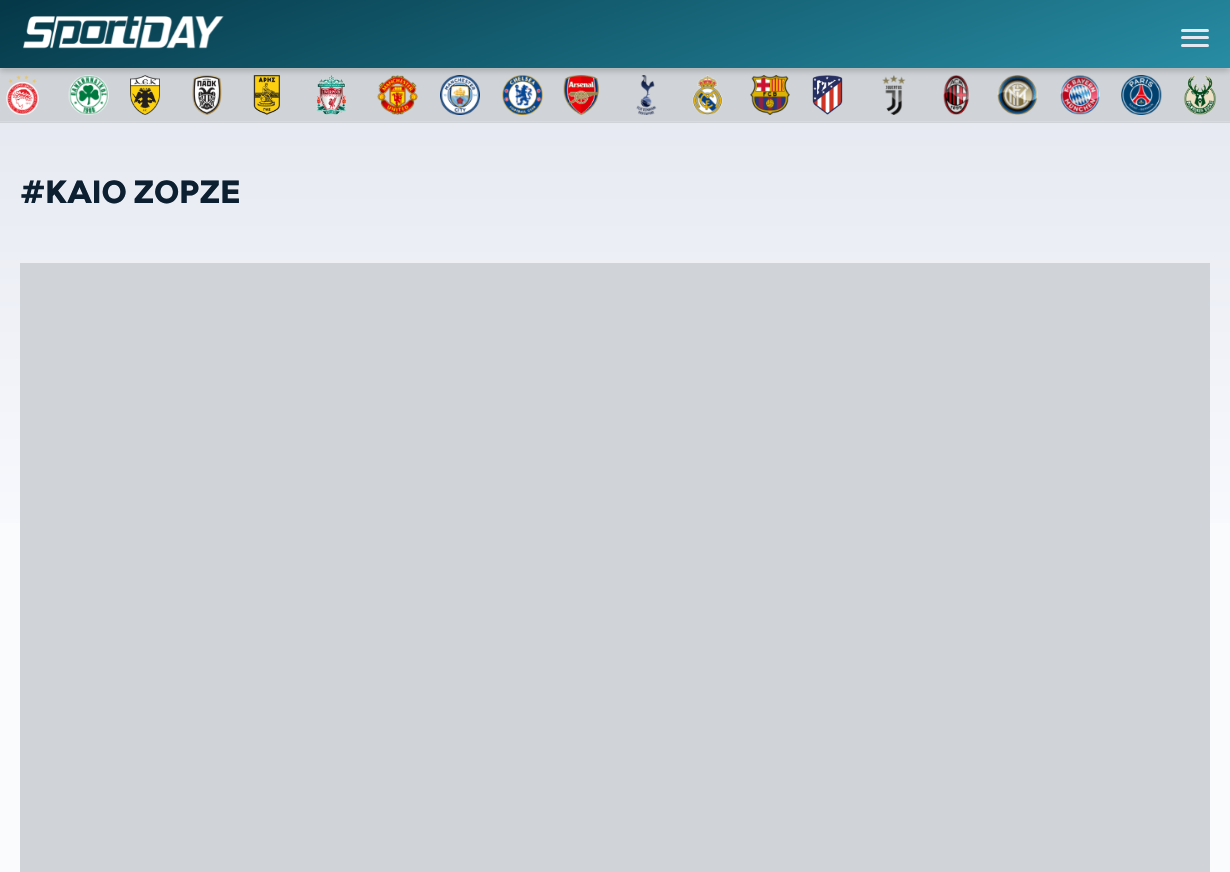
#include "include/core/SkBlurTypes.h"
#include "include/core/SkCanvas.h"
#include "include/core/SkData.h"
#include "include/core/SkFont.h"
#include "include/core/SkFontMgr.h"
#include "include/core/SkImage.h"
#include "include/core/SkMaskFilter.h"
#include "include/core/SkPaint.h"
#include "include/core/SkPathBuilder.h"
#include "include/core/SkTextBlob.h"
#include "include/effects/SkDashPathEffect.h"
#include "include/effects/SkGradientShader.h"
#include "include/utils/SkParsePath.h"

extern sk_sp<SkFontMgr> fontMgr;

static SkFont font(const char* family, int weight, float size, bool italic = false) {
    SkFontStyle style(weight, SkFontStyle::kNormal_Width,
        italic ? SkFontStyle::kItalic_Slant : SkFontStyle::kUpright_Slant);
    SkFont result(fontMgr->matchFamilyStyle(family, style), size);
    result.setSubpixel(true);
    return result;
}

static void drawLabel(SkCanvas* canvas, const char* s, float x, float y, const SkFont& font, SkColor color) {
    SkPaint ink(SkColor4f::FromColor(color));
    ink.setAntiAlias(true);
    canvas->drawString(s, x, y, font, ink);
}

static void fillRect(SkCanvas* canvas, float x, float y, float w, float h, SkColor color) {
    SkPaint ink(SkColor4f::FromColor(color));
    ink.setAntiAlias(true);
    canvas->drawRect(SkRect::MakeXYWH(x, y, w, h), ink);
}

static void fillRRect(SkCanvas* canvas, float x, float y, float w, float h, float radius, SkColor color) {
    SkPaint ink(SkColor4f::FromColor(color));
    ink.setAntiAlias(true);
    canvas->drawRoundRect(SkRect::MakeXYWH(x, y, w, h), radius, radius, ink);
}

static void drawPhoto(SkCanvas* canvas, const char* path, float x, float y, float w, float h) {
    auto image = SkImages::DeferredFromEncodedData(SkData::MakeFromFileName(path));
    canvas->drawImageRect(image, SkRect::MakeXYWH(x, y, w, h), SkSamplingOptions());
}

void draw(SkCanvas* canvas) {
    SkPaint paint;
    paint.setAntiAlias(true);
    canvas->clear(0xFFFAFBFC);
    fillRect(canvas, 0, 69, 1230, 54, 0xFFD0D4D8);
    fillRect(canvas, 0, 68, 1230, 1, 0xFFD9DCDF);
    drawPhoto(canvas, "assets/img2.png", 6, 75, 33, 40);
    drawPhoto(canvas, "assets/img3.png", 68, 75, 41, 40);
    drawPhoto(canvas, "assets/img4.png", 130, 75, 30, 40);
    drawPhoto(canvas, "assets/img5.png", 192, 75, 30, 40);
    drawPhoto(canvas, "assets/img6.png", 253, 75, 27, 40);
    drawPhoto(canvas, "assets/img7.png", 316, 75, 31, 40);
    drawPhoto(canvas, "assets/img8.png", 377, 75, 41, 40);
    drawPhoto(canvas, "assets/img9.png", 440, 75, 40, 40);
    drawPhoto(canvas, "assets/img10.png", 502, 75, 41, 40);
    drawPhoto(canvas, "assets/img11.png", 563, 75, 36, 40);
    drawPhoto(canvas, "assets/img12.png", 636, 75, 21, 40);
    drawPhoto(canvas, "assets/img13.png", 692, 75, 31, 40);
    drawPhoto(canvas, "assets/img14.png", 750, 75, 40, 40);
    drawPhoto(canvas, "assets/img15.png", 812, 75, 31, 40);
    drawPhoto(canvas, "assets/img16.png", 882, 75, 24, 40);
    drawPhoto(canvas, "assets/img17.png", 943, 75, 27, 40);
    drawPhoto(canvas, "assets/img18.png", 997, 75, 41, 40);
    drawPhoto(canvas, "assets/img19.png", 1060, 75, 40, 40);
    drawPhoto(canvas, "assets/img20.png", 1121, 75, 41, 40);
    drawPhoto(canvas, "assets/img21.png", 1183, 75, 34, 40);
    paint.setColor(0x33000000);
    paint.setMaskFilter(SkMaskFilter::MakeBlur(kNormal_SkBlurStyle, 3));
    canvas->drawRect(SkRect::MakeXYWH(0, 4, 1230, 67), paint);
    paint.setMaskFilter(nullptr);
    {
        const SkColor colors[] = {0xFF012F3E, 0xFF2B95AD};
        const float stops[] = {0, 1};
        const SkPoint ends[] = {{516, -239}, {714, 307}};
        paint.setShader(SkGradientShader::MakeLinear(ends, colors, stops, 2, SkTileMode::kClamp));
        paint.setAlpha(255);
    }
    canvas->drawRect(SkRect::MakeXYWH(0, 0, 1230, 68), paint);
    drawPhoto(canvas, "assets/img1.png", 23, 16, 201, 33);
    fillRRect(canvas, 1181, 29, 28, 3, 1.5f, 0xFFE5E8F0);
    fillRRect(canvas, 1181, 36, 28, 3, 1.5f, 0xFFE5E8F0);
    fillRRect(canvas, 1181, 44, 28, 3, 1.5f, 0xFFE5E8F0);
    fillRect(canvas, 0, 121, 1230, 1, 0xFFD7DADE);
    {
        const SkColor colors[] = {0xFFE5E8F0, 0xFFF9FAFE};
        const float stops[] = {0, 1};
        const SkPoint ends[] = {{615, 79}, {615, 559}};
        paint.setShader(SkGradientShader::MakeLinear(ends, colors, stops, 2, SkTileMode::kClamp));
        paint.setAlpha(255);
    }
    canvas->drawRect(SkRect::MakeXYWH(0, 123, 1230, 400), paint);
    SkFont font1 = font("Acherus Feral", 900, 32);
    drawLabel(canvas, "#ΚΑΙΟ ΖΟΡΖΕ", 20, 203, font1, 0xFF0D2032);
    fillRect(canvas, 20, 263, 1190, 609, 0xFFD0D4D8);
}
